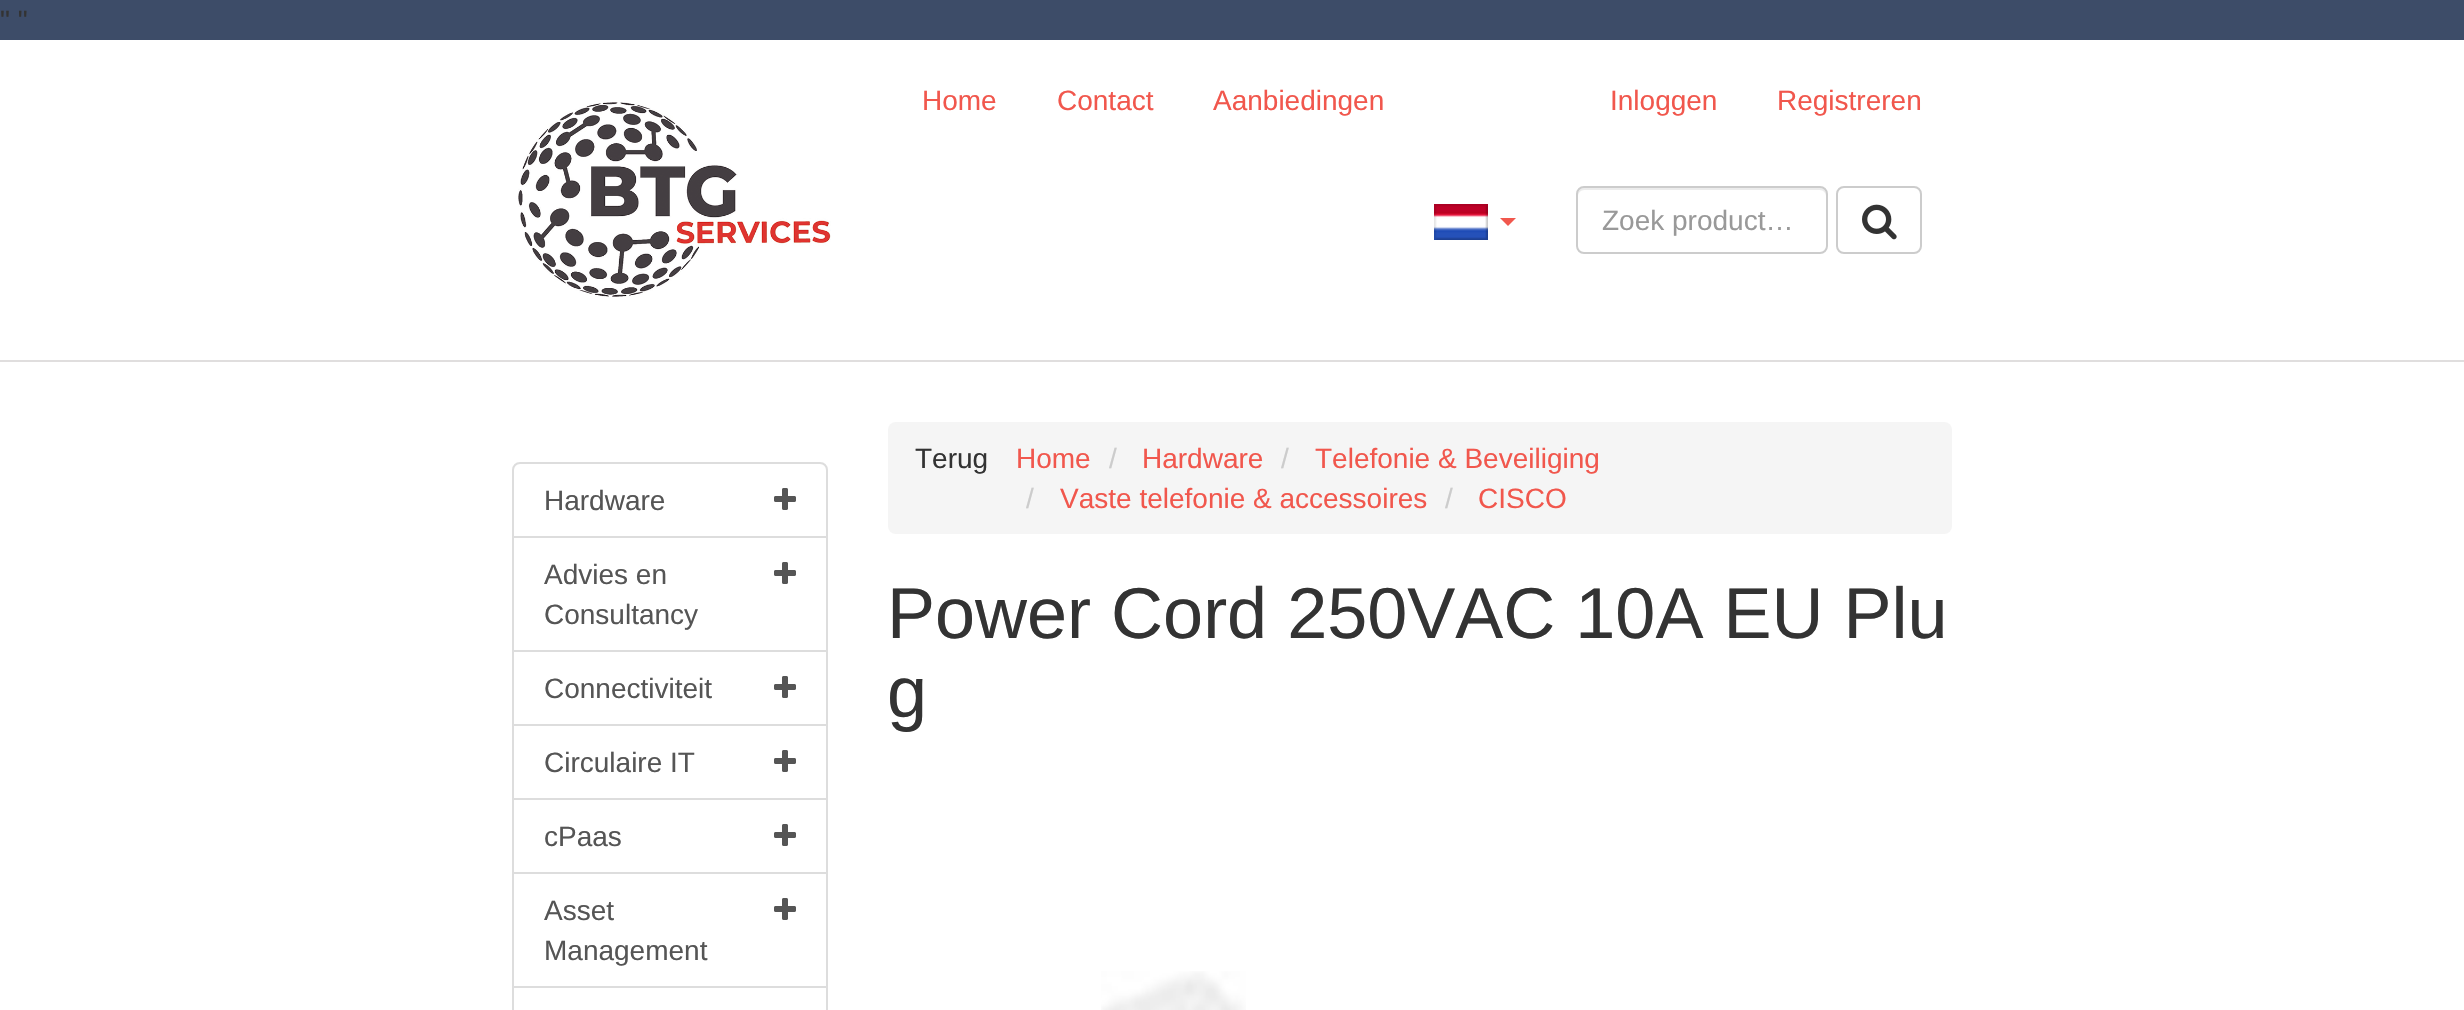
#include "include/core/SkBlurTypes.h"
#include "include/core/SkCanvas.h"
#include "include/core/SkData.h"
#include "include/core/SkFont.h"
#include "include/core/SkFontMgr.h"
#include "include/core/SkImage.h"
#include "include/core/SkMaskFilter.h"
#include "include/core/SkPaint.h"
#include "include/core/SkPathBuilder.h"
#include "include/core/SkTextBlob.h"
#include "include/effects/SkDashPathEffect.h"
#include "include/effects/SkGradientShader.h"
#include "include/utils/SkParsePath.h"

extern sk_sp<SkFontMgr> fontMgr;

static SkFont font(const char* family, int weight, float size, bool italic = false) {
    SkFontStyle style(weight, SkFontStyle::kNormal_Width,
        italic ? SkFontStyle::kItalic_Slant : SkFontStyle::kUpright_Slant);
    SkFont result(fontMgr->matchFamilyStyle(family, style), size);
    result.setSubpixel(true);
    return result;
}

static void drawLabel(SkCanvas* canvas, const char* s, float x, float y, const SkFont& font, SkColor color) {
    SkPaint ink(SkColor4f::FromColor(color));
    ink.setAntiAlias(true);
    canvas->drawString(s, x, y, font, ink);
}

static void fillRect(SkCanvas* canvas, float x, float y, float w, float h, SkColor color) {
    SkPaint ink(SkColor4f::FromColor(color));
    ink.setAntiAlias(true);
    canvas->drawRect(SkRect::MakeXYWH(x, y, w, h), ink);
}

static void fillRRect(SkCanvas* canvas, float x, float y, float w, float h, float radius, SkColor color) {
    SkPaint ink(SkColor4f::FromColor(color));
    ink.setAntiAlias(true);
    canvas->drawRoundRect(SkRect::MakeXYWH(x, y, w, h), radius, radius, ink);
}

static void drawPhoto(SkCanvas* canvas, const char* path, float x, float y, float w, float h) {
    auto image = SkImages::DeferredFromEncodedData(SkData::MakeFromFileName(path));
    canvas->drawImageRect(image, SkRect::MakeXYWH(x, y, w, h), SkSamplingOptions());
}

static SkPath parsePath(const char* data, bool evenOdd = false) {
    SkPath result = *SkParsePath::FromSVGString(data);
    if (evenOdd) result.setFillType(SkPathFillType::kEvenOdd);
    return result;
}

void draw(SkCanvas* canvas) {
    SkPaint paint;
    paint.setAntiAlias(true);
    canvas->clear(0xFFFFFFFF);
    fillRect(canvas, 0, 0, 2464, 40, 0xFF3D4C68);
    SkFont font1 = font("Liberation Sans", 400, 28);
    drawLabel(canvas, "\" \"", 0, 30, font1, 0xFF333333);
    fillRect(canvas, 0, 360, 2464, 2, 0xFFE0DEDE);
    drawPhoto(canvas, "assets/img1.png", 518, 102, 313, 195);
    drawLabel(canvas, "Home", 922, 110, font1, 0xFFF1574D);
    drawLabel(canvas, "Contact", 1057, 110, font1, 0xFFF1574D);
    drawLabel(canvas, "Aanbiedingen", 1213, 110, font1, 0xFFF1574D);
    drawLabel(canvas, "Inloggen", 1610, 110, font1, 0xFFF1574D);
    drawLabel(canvas, "Registreren", 1777, 110, font1, 0xFFF1574D);
    drawPhoto(canvas, "assets/img2.png", 1434, 204, 54, 36);
    paint.setColor(0xFFF1574D);
    canvas->drawPath(parsePath("M1500 218H1516L1508 226Z"), paint);
    paint.setColor(0xFFECECEC);
    canvas->drawPath(parsePath("M1584 190H1820C1823 190 1826 193 1826 196V194C1826 191 1823 188 1820 188H1584C1581 188 1578 191 1578 194V196C1578 193 1581 190 1584 190Z"), paint);
    paint.setStroke(true);
    paint.setStrokeWidth(2);
    paint.setColor(0xFFCCCCCC);
    canvas->drawRoundRect(SkRect::MakeXYWH(1577, 187, 250, 66), 7, 7, paint);
    drawLabel(canvas, "Zoek product…", 1602, 230, font1, 0xFF999999);
    canvas->drawRoundRect(SkRect::MakeXYWH(1837, 187, 84, 66), 7, 7, paint);
    drawPhoto(canvas, "assets/img3.png", 1862, 204, 35, 36);
    paint.setColor(0xFFDDDDDD);
    canvas->drawPath(parsePath("M520 463H820C824 463 827 466 827 470V537H513V470C513 466 516 463 520 463Z"), paint);
    drawLabel(canvas, "Hardware", 544, 510, font1, 0xFF555555);
    drawPhoto(canvas, "assets/img4.png", 774, 488, 22, 22);
    canvas->drawRect(SkRect::MakeXYWH(513, 537, 314, 114), paint);
    drawLabel(canvas, "Advies en", 544, 584, font1, 0xFF555555);
    drawPhoto(canvas, "assets/img4.png", 774, 562, 22, 22);
    drawLabel(canvas, "Consultancy", 544, 624, font1, 0xFF555555);
    canvas->drawRect(SkRect::MakeXYWH(513, 651, 314, 74), paint);
    drawLabel(canvas, "Connectiviteit", 544, 698, font1, 0xFF555555);
    drawPhoto(canvas, "assets/img4.png", 774, 676, 22, 22);
    canvas->drawRect(SkRect::MakeXYWH(513, 725, 314, 74), paint);
    drawLabel(canvas, "Circulaire IT", 544, 772, font1, 0xFF555555);
    drawPhoto(canvas, "assets/img4.png", 774, 750, 22, 22);
    canvas->drawRect(SkRect::MakeXYWH(513, 799, 314, 74), paint);
    drawLabel(canvas, "cPaas", 544, 846, font1, 0xFF555555);
    drawPhoto(canvas, "assets/img4.png", 774, 824, 22, 22);
    canvas->drawRect(SkRect::MakeXYWH(513, 873, 314, 114), paint);
    drawLabel(canvas, "Asset", 544, 920, font1, 0xFF555555);
    drawPhoto(canvas, "assets/img4.png", 774, 898, 22, 22);
    drawLabel(canvas, "Management", 544, 960, font1, 0xFF555555);
    canvas->drawRect(SkRect::MakeXYWH(513, 987, 314, 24), paint);
    fillRRect(canvas, 888, 422, 1064, 112, 8, 0xFFF5F5F5);
    drawLabel(canvas, "Terug", 915, 468, font1, 0xFF333333);
    drawLabel(canvas, "Home", 1016, 468, font1, 0xFFF1574D);
    drawLabel(canvas, "/", 1109, 468, font1, 0xFFCCCCCC);
    drawLabel(canvas, "Hardware", 1142, 468, font1, 0xFFF1574D);
    drawLabel(canvas, "/", 1281, 468, font1, 0xFFCCCCCC);
    drawLabel(canvas, "Telefonie & Beveiliging", 1315, 468, font1, 0xFFF1574D);
    drawLabel(canvas, "/", 1026, 508, font1, 0xFFCCCCCC);
    drawLabel(canvas, "Vaste telefonie & accessoires", 1060, 508, font1, 0xFFF1574D);
    drawLabel(canvas, "/", 1445, 508, font1, 0xFFCCCCCC);
    drawLabel(canvas, "CISCO", 1478, 508, font1, 0xFFF1574D);
    SkFont font2 = font("Liberation Sans", 400, 72);
    drawLabel(canvas, "Power Cord 250VAC 10A EU Plu", 887, 638, font2, 0xFF333333);
    drawLabel(canvas, "g", 887, 717, font2, 0xFF333333);
    drawPhoto(canvas, "assets/img5.png", 1101, 971, 145, 39);
}
